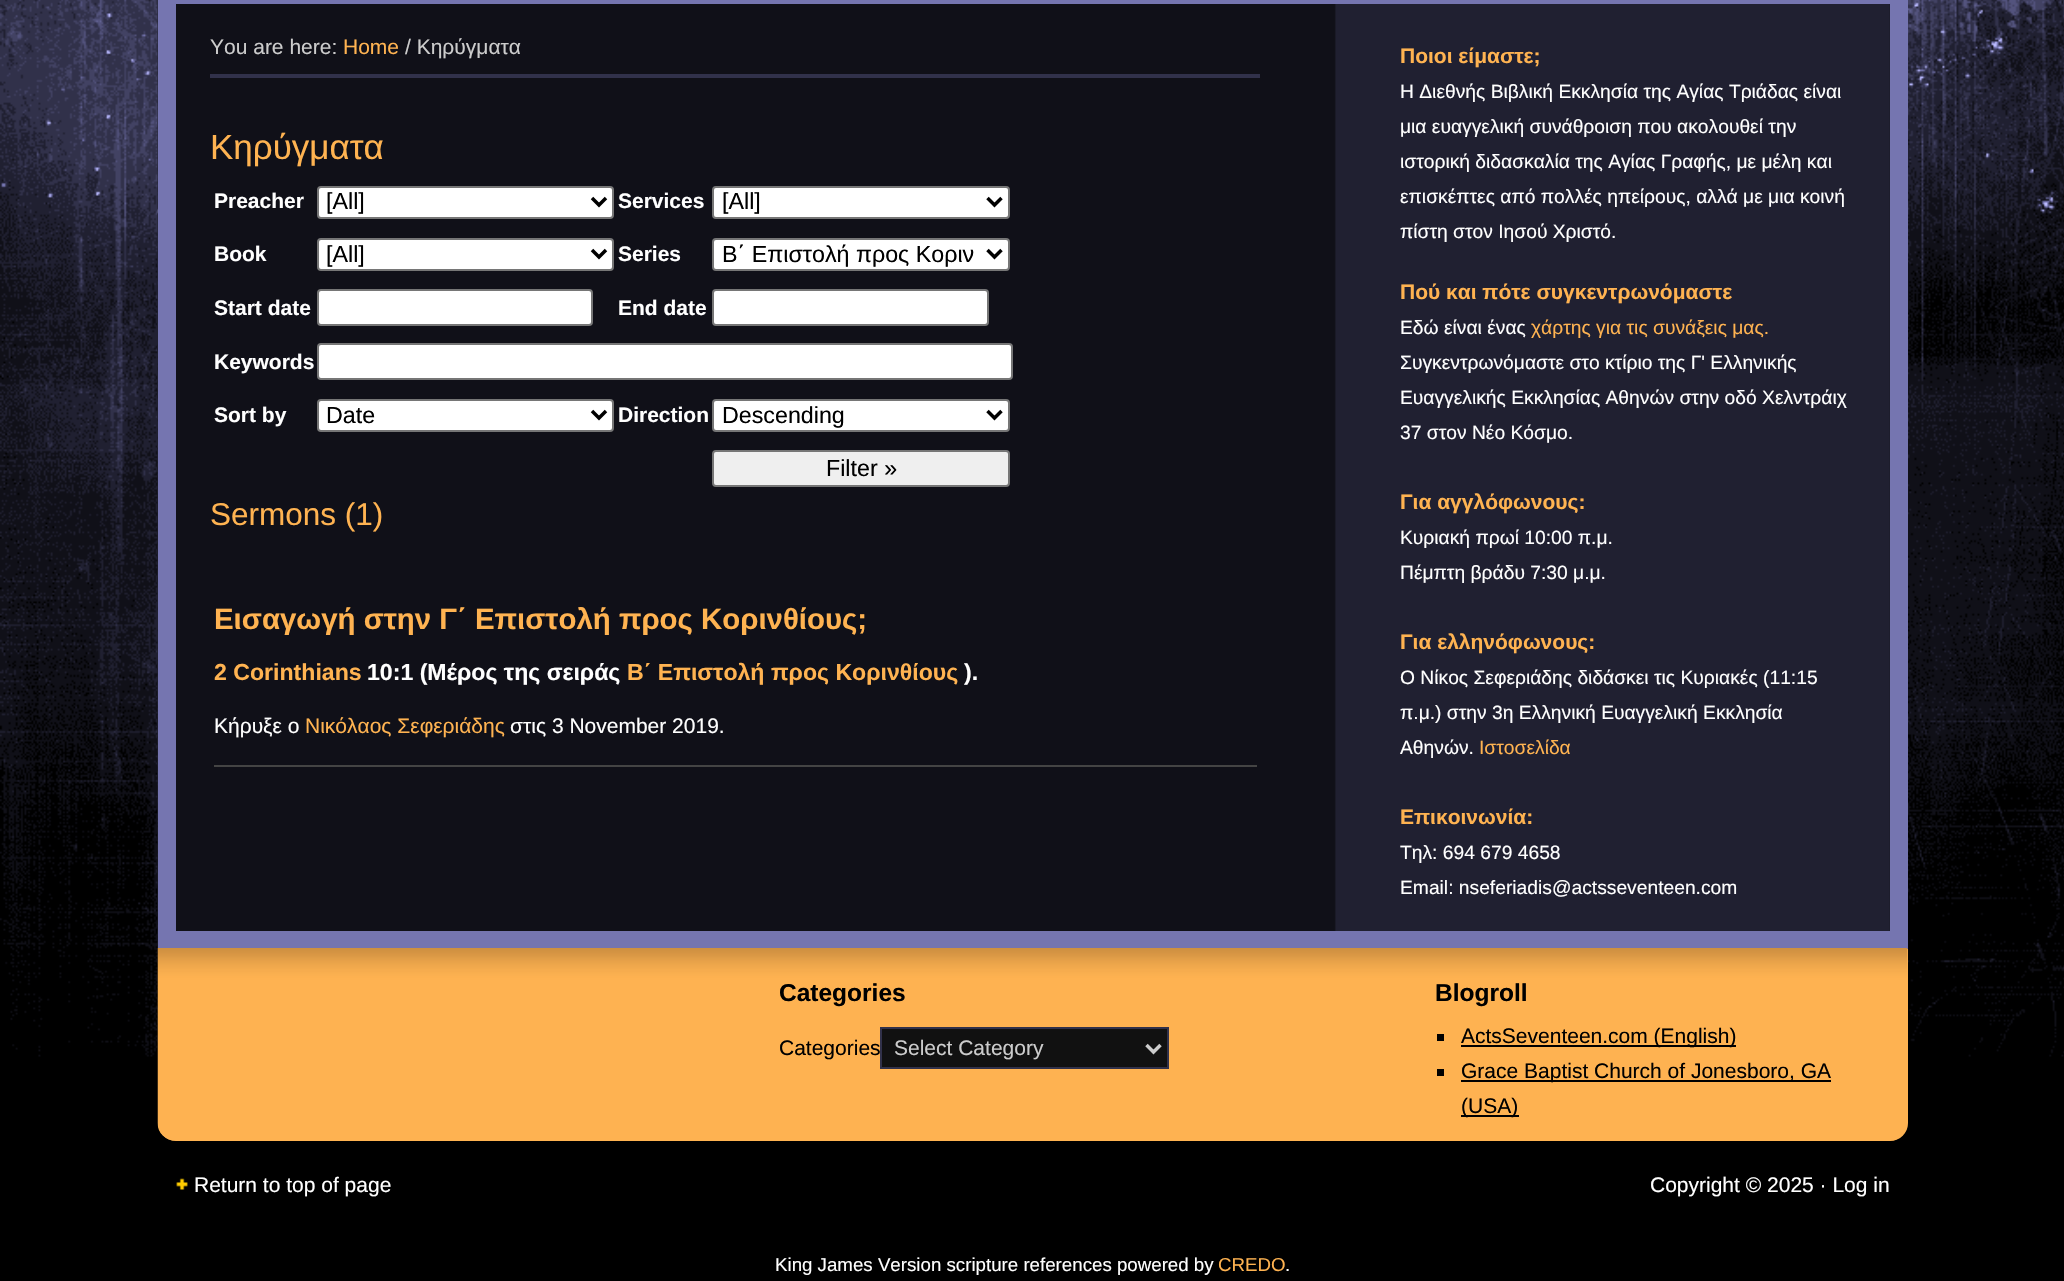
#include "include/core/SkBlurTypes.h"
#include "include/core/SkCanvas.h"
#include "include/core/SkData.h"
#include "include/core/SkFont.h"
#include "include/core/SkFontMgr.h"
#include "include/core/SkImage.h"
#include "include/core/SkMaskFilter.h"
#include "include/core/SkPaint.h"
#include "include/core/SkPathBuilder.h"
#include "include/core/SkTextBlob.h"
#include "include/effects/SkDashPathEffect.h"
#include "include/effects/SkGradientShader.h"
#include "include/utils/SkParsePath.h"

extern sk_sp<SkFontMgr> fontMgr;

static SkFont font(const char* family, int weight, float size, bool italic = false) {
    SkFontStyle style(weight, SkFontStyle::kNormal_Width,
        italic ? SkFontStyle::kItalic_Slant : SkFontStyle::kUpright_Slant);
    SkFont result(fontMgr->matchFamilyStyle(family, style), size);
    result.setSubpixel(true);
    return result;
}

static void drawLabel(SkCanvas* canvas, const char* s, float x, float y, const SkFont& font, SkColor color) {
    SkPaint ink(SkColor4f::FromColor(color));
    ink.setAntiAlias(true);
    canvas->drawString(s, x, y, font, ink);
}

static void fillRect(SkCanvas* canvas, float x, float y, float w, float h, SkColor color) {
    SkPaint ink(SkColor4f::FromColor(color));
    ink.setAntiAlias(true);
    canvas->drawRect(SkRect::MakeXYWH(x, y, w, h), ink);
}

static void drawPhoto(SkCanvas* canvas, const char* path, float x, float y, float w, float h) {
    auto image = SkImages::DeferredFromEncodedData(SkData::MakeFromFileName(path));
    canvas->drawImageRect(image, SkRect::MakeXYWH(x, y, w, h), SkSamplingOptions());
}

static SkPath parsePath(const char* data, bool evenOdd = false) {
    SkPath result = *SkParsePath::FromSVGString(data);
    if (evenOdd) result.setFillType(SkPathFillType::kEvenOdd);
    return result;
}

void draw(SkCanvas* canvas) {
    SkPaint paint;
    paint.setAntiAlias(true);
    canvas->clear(0xFF000000);
    drawPhoto(canvas, "assets/img1.png", 0, 0, 2064, 1057);
    drawPhoto(canvas, "assets/img2.png", 157, 0, 1733, 948);
    paint.setStroke(true);
    paint.setStrokeWidth(18);
    paint.setColor(0xFF7575B0);
    canvas->drawRect(SkRect::MakeXYWH(167, -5, 1732, 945), paint);
    fillRect(canvas, 210, 74, 1050, 4, 0xFF31314A);
    SkFont font1 = font("Liberation Sans", 400, 21);
    drawLabel(canvas, "You are here:", 210, 54, font1, 0xFFCCCCCC);
    drawLabel(canvas, "Home", 343, 54, font1, 0xFFFFB351);
    drawLabel(canvas, "/ Κηρύγματα", 405, 54, font1, 0xFFCCCCCC);
    SkFont font2 = font("Liberation Sans", 400, 35);
    drawLabel(canvas, "Κηρύγματα", 210, 159, font2, 0xFFFFB351);
    SkFont font3 = font("Liberation Sans", 700, 21);
    drawLabel(canvas, "Preacher", 214, 208, font3, 0xFFFFFFFF);
    paint.setStroke(false);
    paint.setColor(0xFFFFFFFF);
    canvas->drawRoundRect(SkRect::MakeXYWH(318, 187, 295, 31), 3, 3, paint);
    paint.setStroke(true);
    paint.setStrokeWidth(2);
    paint.setColor(0xFF767676);
    canvas->drawRoundRect(SkRect::MakeXYWH(318, 187, 295, 31), 3, 3, paint);
    paint.setStrokeWidth(3.5f);
    paint.setColor(0xFF000000);
    canvas->drawPath(parsePath("M592 198L599 205L606 198"), paint);
    SkFont font4 = font("Liberation Sans", 400, 23.25f);
    drawLabel(canvas, "[All]", 326, 209, font4, 0xFF000000);
    drawLabel(canvas, "Services", 618, 208, font3, 0xFFFFFFFF);
    paint.setStroke(false);
    paint.setColor(0xFFFFFFFF);
    canvas->drawRoundRect(SkRect::MakeXYWH(713, 187, 296, 31), 3, 3, paint);
    paint.setStroke(true);
    paint.setStrokeWidth(2);
    paint.setColor(0xFF767676);
    canvas->drawRoundRect(SkRect::MakeXYWH(713, 187, 296, 31), 3, 3, paint);
    paint.setStrokeWidth(3.5f);
    paint.setColor(0xFF000000);
    canvas->drawPath(parsePath("M987.5 198L994.5 205L1001.5 198"), paint);
    drawLabel(canvas, "[All]", 722, 209, font4, 0xFF000000);
    drawLabel(canvas, "Book", 214, 261, font3, 0xFFFFFFFF);
    paint.setStroke(false);
    paint.setColor(0xFFFFFFFF);
    canvas->drawRoundRect(SkRect::MakeXYWH(318, 239, 295, 31), 3, 3, paint);
    paint.setStroke(true);
    paint.setStrokeWidth(2);
    paint.setColor(0xFF767676);
    canvas->drawRoundRect(SkRect::MakeXYWH(318, 239, 295, 31), 3, 3, paint);
    paint.setStrokeWidth(3.5f);
    paint.setColor(0xFF000000);
    canvas->drawPath(parsePath("M592 250L599 257L606 250"), paint);
    drawLabel(canvas, "[All]", 326, 262, font4, 0xFF000000);
    drawLabel(canvas, "Series", 618, 261, font3, 0xFFFFFFFF);
    paint.setStroke(false);
    paint.setColor(0xFFFFFFFF);
    canvas->drawRoundRect(SkRect::MakeXYWH(713, 239, 296, 31), 3, 3, paint);
    paint.setStroke(true);
    paint.setStrokeWidth(2);
    paint.setColor(0xFF767676);
    canvas->drawRoundRect(SkRect::MakeXYWH(713, 239, 296, 31), 3, 3, paint);
    paint.setStrokeWidth(3.5f);
    paint.setColor(0xFF000000);
    canvas->drawPath(parsePath("M987.5 250L994.5 257L1001.5 250"), paint);
    drawLabel(canvas, "Β΄ Επιστολή προς Κοριν", 722, 262, font4, 0xFF000000);
    drawLabel(canvas, "Start date", 214, 315, font3, 0xFFFFFFFF);
    paint.setStroke(false);
    paint.setColor(0xFFFFFFFF);
    canvas->drawRoundRect(SkRect::MakeXYWH(318, 290, 274, 35), 3, 3, paint);
    paint.setStroke(true);
    paint.setStrokeWidth(2);
    paint.setColor(0xFF767676);
    canvas->drawRoundRect(SkRect::MakeXYWH(318, 290, 274, 35), 3, 3, paint);
    drawLabel(canvas, "End date", 618, 315, font3, 0xFFFFFFFF);
    paint.setStroke(false);
    paint.setColor(0xFFFFFFFF);
    canvas->drawRoundRect(SkRect::MakeXYWH(713, 290, 275, 35), 3, 3, paint);
    paint.setStroke(true);
    paint.setColor(0xFF767676);
    canvas->drawRoundRect(SkRect::MakeXYWH(713, 290, 275, 35), 3, 3, paint);
    drawLabel(canvas, "Keywords", 214, 369, font3, 0xFFFFFFFF);
    paint.setStroke(false);
    paint.setColor(0xFFFFFFFF);
    canvas->drawRoundRect(SkRect::MakeXYWH(318, 344, 694, 35), 3, 3, paint);
    paint.setStroke(true);
    paint.setColor(0xFF767676);
    canvas->drawRoundRect(SkRect::MakeXYWH(318, 344, 694, 35), 3, 3, paint);
    drawLabel(canvas, "Sort by", 214, 422, font3, 0xFFFFFFFF);
    paint.setStroke(false);
    paint.setColor(0xFFFFFFFF);
    canvas->drawRoundRect(SkRect::MakeXYWH(318, 400, 295, 31), 3, 3, paint);
    paint.setStroke(true);
    paint.setColor(0xFF767676);
    canvas->drawRoundRect(SkRect::MakeXYWH(318, 400, 295, 31), 3, 3, paint);
    paint.setStrokeWidth(3.5f);
    paint.setColor(0xFF000000);
    canvas->drawPath(parsePath("M592 411L599 418L606 411"), paint);
    drawLabel(canvas, "Date", 326, 423, font4, 0xFF000000);
    drawLabel(canvas, "Direction", 618, 422, font3, 0xFFFFFFFF);
    paint.setStroke(false);
    paint.setColor(0xFFFFFFFF);
    canvas->drawRoundRect(SkRect::MakeXYWH(713, 400, 296, 31), 3, 3, paint);
    paint.setStroke(true);
    paint.setStrokeWidth(2);
    paint.setColor(0xFF767676);
    canvas->drawRoundRect(SkRect::MakeXYWH(713, 400, 296, 31), 3, 3, paint);
    paint.setStrokeWidth(3.5f);
    paint.setColor(0xFF000000);
    canvas->drawPath(parsePath("M987.5 411L994.5 418L1001.5 411"), paint);
    drawLabel(canvas, "Descending", 722, 423, font4, 0xFF000000);
    paint.setStroke(false);
    paint.setColor(0xFFEFEFEF);
    canvas->drawRoundRect(SkRect::MakeXYWH(713, 451, 296, 35), 3, 3, paint);
    paint.setStroke(true);
    paint.setStrokeWidth(2);
    paint.setColor(0xFF767676);
    canvas->drawRoundRect(SkRect::MakeXYWH(713, 451, 296, 35), 3, 3, paint);
    drawLabel(canvas, "Filter »", 826, 476, font4, 0xFF000000);
    SkFont font5 = font("Liberation Sans", 400, 31.5f);
    drawLabel(canvas, "Sermons (1)", 210, 525, font5, 0xFFFFB351);
    SkFont font6 = font("Liberation Sans", 700, 29.4f);
    drawLabel(canvas, "Εισαγωγή στην Γ΄ Επιστολή προς Κορινθίους;", 214, 629, font6, 0xFFFFB351);
    SkFont font7 = font("Liberation Sans", 700, 23.1f);
    drawLabel(canvas, "2 Corinthians", 214, 680, font7, 0xFFFFB351);
    drawLabel(canvas, "10:1 (Μέρος της σειράς", 367, 680, font7, 0xFFFFFFFF);
    drawLabel(canvas, "Β΄ Επιστολή προς Κορινθίους", 627, 680, font7, 0xFFFFB351);
    drawLabel(canvas, ").", 964, 680, font7, 0xFFFFFFFF);
    fillRect(canvas, 214, 765, 1043, 2, 0xFF444444);
    drawLabel(canvas, "Κήρυξε ο", 214, 733, font1, 0xFFFFFFFF);
    drawLabel(canvas, "Νικόλαος Σεφεριάδης", 305, 733, font1, 0xFFFFB351);
    drawLabel(canvas, "στις 3 November 2019.", 510, 733, font1, 0xFFFFFFFF);
    drawLabel(canvas, "Ποιοι είμαστε;", 1400, 63, font3, 0xFFFFB351);
    SkFont font8 = font("Liberation Sans", 400, 19.25f);
    drawLabel(canvas, "Η Διεθνής Βιβλική Εκκλησία της Αγίας Τριάδας είναι", 1400, 98, font8, 0xFFFFFFFF);
    drawLabel(canvas, "μια ευαγγελική συνάθροιση που ακολουθεί την", 1400, 133, font8, 0xFFFFFFFF);
    drawLabel(canvas, "ιστορική διδασκαλία της Αγίας Γραφής, με μέλη και", 1400, 168, font8, 0xFFFFFFFF);
    drawLabel(canvas, "επισκέπτες από πολλές ηπείρους, αλλά με μια κοινή", 1400, 203, font8, 0xFFFFFFFF);
    drawLabel(canvas, "πίστη στον Ιησού Χριστό.", 1400, 238, font8, 0xFFFFFFFF);
    drawLabel(canvas, "Πού και πότε συγκεντρωνόμαστε", 1400, 299, font3, 0xFFFFB351);
    drawLabel(canvas, "Εδώ είναι ένας", 1400, 334, font8, 0xFFFFFFFF);
    drawLabel(canvas, "χάρτης για τις συνάξεις μας.", 1531, 334, font8, 0xFFFFB351);
    drawLabel(canvas, "Συγκεντρωνόμαστε στο κτίριο της Γ' Ελληνικής", 1400, 369, font8, 0xFFFFFFFF);
    drawLabel(canvas, "Ευαγγελικής Εκκλησίας Αθηνών στην οδό Χελντράιχ", 1400, 404, font8, 0xFFFFFFFF);
    drawLabel(canvas, "37 στον Νέο Κόσμο.", 1400, 439, font8, 0xFFFFFFFF);
    drawLabel(canvas, "Για αγγλόφωνους:", 1400, 509, font3, 0xFFFFB351);
    drawLabel(canvas, "Κυριακή πρωί 10:00 π.μ.", 1400, 544, font8, 0xFFFFFFFF);
    drawLabel(canvas, "Πέμπτη βράδυ 7:30 μ.μ.", 1400, 579, font8, 0xFFFFFFFF);
    drawLabel(canvas, "Για ελληνόφωνους:", 1400, 649, font3, 0xFFFFB351);
    drawLabel(canvas, "Ο Νίκος Σεφεριάδης διδάσκει τις Κυριακές (11:15", 1400, 684, font8, 0xFFFFFFFF);
    drawLabel(canvas, "π.μ.) στην 3η Ελληνική Ευαγγελική Εκκλησία", 1400, 719, font8, 0xFFFFFFFF);
    drawLabel(canvas, "Αθηνών.", 1400, 754, font8, 0xFFFFFFFF);
    drawLabel(canvas, "Ιστοσελίδα", 1479, 754, font8, 0xFFFFB351);
    drawLabel(canvas, "Επικοινωνία:", 1400, 824, font3, 0xFFFFB351);
    drawLabel(canvas, "Τηλ: 694 679 4658", 1400, 859, font8, 0xFFFFFFFF);
    drawLabel(canvas, "Email: nseferiadis@actsseventeen.com", 1400, 894, font8, 0xFFFFFFFF);
    paint.setStroke(false);
    paint.setColor(0xFFFFB351);
    canvas->drawPath(parsePath("M158 949H1908V1123C1908 1133 1900 1141 1890 1141H176C166 1141 158 1133 158 1123Z"), paint);
    drawPhoto(canvas, "assets/img3.png", 157, 948, 1751, 193);
    SkFont font9 = font("Liberation Sans", 700, 24.5f);
    drawLabel(canvas, "Categories", 779, 1001, font9, 0xFF000000);
    drawLabel(canvas, "Categories", 779, 1055, font1, 0xFF000000);
    paint.setColor(0xFF111111);
    canvas->drawRect(SkRect::MakeXYWH(881, 1028, 287, 40), paint);
    paint.setStroke(true);
    paint.setColor(0xFF31314A);
    canvas->drawRect(SkRect::MakeXYWH(881, 1028, 287, 40), paint);
    paint.setStrokeWidth(3.5f);
    paint.setColor(0xFFCCCCCC);
    canvas->drawPath(parsePath("M1146.5 1045L1153.5 1052L1160.5 1045"), paint);
    drawLabel(canvas, "Select Category", 894, 1055, font1, 0xFFCCCCCC);
    drawLabel(canvas, "Blogroll", 1435, 1001, font9, 0xFF000000);
    fillRect(canvas, 1437, 1034, 7, 7, 0xFF000000);
    fillRect(canvas, 1461, 1045, 275, 2, 0xFF000000);
    drawLabel(canvas, "ActsSeventeen.com (English)", 1461, 1043, font1, 0xFF000000);
    fillRect(canvas, 1437, 1069, 7, 7, 0xFF000000);
    fillRect(canvas, 1461, 1080, 370, 2, 0xFF000000);
    drawLabel(canvas, "Grace Baptist Church of Jonesboro, GA", 1461, 1078, font1, 0xFF000000);
    fillRect(canvas, 1461, 1115, 58, 2, 0xFF000000);
    drawLabel(canvas, "(USA)", 1461, 1113, font1, 0xFF000000);
    drawPhoto(canvas, "assets/img4.png", 176, 1178, 12, 12);
    drawLabel(canvas, "Return to top of page", 194, 1192, font1, 0xFFFFFFFF);
    drawLabel(canvas, "Copyright © 2025 · Log in", 1650, 1192, font1, 0xFFFFFFFF);
    SkFont font10 = font("Liberation Sans", 400, 18.7f);
    drawLabel(canvas, "King James Version scripture references powered by", 775, 1271, font10, 0xFFFFFFFF);
    drawLabel(canvas, "CREDO", 1218, 1271, font10, 0xFFFFB351);
    drawLabel(canvas, ".", 1285, 1271, font10, 0xFFFFFFFF);
}
